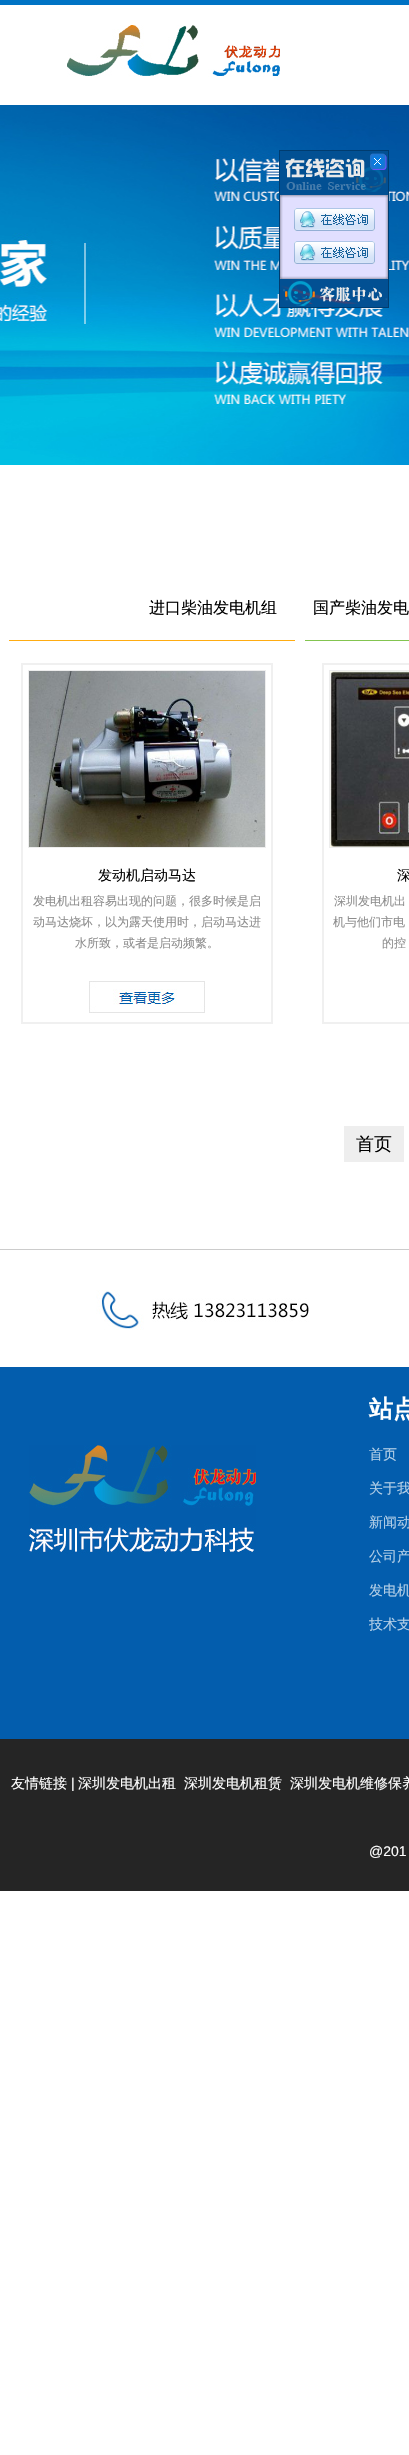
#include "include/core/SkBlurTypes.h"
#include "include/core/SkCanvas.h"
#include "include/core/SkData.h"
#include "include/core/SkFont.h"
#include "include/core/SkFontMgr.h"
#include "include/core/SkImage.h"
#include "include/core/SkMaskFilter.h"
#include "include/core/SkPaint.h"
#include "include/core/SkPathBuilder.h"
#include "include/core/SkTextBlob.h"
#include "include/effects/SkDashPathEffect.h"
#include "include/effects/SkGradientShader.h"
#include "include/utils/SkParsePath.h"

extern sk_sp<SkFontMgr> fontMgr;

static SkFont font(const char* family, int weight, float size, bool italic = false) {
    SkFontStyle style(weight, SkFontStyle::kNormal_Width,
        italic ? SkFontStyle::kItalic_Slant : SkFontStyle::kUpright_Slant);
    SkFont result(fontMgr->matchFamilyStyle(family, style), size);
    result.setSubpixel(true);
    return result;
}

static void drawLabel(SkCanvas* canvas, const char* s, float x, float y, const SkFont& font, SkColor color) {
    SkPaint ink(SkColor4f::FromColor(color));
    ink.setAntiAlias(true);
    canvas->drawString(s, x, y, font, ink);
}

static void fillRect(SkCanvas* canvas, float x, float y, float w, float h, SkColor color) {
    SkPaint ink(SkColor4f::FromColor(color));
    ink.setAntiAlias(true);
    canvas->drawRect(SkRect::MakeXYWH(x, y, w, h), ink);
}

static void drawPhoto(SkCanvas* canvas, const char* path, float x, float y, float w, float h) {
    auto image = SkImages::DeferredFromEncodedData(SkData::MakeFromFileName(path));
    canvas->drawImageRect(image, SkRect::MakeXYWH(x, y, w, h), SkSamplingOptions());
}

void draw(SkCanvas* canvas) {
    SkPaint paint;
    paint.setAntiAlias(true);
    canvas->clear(0xFFFFFFFF);
    fillRect(canvas, 0, 0, 409, 5, 0xFF0073C4);
    drawPhoto(canvas, "assets/img1.png", 67, 25, 213, 52);
    drawPhoto(canvas, "assets/img2.png", 0, 105, 409, 360);
    drawPhoto(canvas, "assets/img3.png", 279, 150, 110, 48);
    drawPhoto(canvas, "assets/img4.png", 279, 198, 110, 76);
    drawPhoto(canvas, "assets/img5.png", 294, 208, 81, 23);
    drawPhoto(canvas, "assets/img5.png", 294, 241, 81, 23);
    drawPhoto(canvas, "assets/img6.png", 279, 274, 110, 34);
    drawPhoto(canvas, "assets/img7.png", 9, 640, 400, 1);
    SkFont font1 = font("WenQuanYi Zen Hei", 500, 16);
    drawLabel(canvas, "进口柴油发电机组", 149, 613, font1, 0xFF000000);
    drawLabel(canvas, "国产柴油发电", 313, 613, font1, 0xFF000000);
    paint.setStroke(true);
    paint.setStrokeWidth(2);
    paint.setColor(0xFFF0F0F0);
    canvas->drawRect(SkRect::MakeXYWH(22, 664, 250, 359), paint);
    paint.setStrokeWidth(1);
    paint.setColor(0xFFEDEDED);
    canvas->drawRect(SkRect::MakeXYWH(28.5f, 670.5f, 237, 177), paint);
    drawPhoto(canvas, "assets/img8.png", 29, 671, 236, 176);
    SkFont font2 = font("WenQuanYi Zen Hei", 500, 14);
    drawLabel(canvas, "发动机启动马达", 98, 880, font2, 0xFF000000);
    SkFont font3 = font("WenQuanYi Zen Hei", 500, 12);
    drawLabel(canvas, "发电机出租容易出现的问题，很多时候是启", 33, 905, font3, 0xFF8D8D8D);
    drawLabel(canvas, "动马达烧坏，以为露天使用时，启动马达进", 33, 926, font3, 0xFF8D8D8D);
    drawLabel(canvas, "水所致，或者是启动频繁。", 75, 947, font3, 0xFF8D8D8D);
    drawPhoto(canvas, "assets/img9.png", 89, 981, 116, 32);
    paint.setStrokeWidth(2);
    paint.setColor(0xFFF0F0F0);
    canvas->drawRect(SkRect::MakeXYWH(323, 664, 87, 359), paint);
    paint.setStrokeWidth(1);
    paint.setColor(0xFFEDEDED);
    canvas->drawRect(SkRect::MakeXYWH(329.5f, 670.5f, 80, 177), paint);
    drawPhoto(canvas, "assets/img10.png", 330, 671, 79, 176);
    drawLabel(canvas, "深", 397, 880, font2, 0xFF000000);
    drawLabel(canvas, "深圳发电机出", 334, 905, font3, 0xFF8D8D8D);
    drawLabel(canvas, "机与他们市电", 333, 926, font3, 0xFF8D8D8D);
    drawLabel(canvas, "的控", 382, 947, font3, 0xFF8D8D8D);
    fillRect(canvas, 344, 1126, 60, 36, 0xFFEEEEEE);
    SkFont font4 = font("WenQuanYi Zen Hei", 500, 18);
    drawLabel(canvas, "首页", 356, 1150, font4, 0xFF000000);
    fillRect(canvas, 0, 1249, 409, 1, 0xFFCCCCCC);
    drawPhoto(canvas, "assets/img11.png", 96, 1290, 213, 40);
    fillRect(canvas, 0, 1367, 409, 372, 0xFF035DAD);
    drawPhoto(canvas, "assets/img12.png", 29, 1445, 227, 109);
    SkFont font5 = font("WenQuanYi Zen Hei", 700, 24);
    drawLabel(canvas, "站点", 369, 1417, font5, 0xFFFFFFFF);
    drawLabel(canvas, "首页", 369, 1459, font2, 0xFFB4CFE7);
    drawLabel(canvas, "关于我", 369, 1493, font2, 0xFFB4CFE7);
    drawLabel(canvas, "新闻动", 369, 1527, font2, 0xFFB4CFE7);
    drawLabel(canvas, "公司产", 369, 1561, font2, 0xFFB4CFE7);
    drawLabel(canvas, "发电机", 369, 1595, font2, 0xFFB4CFE7);
    drawLabel(canvas, "技术支", 369, 1629, font2, 0xFFB4CFE7);
    fillRect(canvas, 0, 1739, 409, 152, 0xFF252525);
    drawLabel(canvas, "友情链接", 11, 1788, font2, 0xFFFFFFFF);
    SkFont font6 = font("Liberation Sans", 400, 14);
    drawLabel(canvas, "|", 71, 1788, font6, 0xFFFFFFFF);
    drawLabel(canvas, "深圳发电机出租", 78, 1788, font2, 0xFFFFFFFF);
    drawLabel(canvas, "深圳发电机租赁", 184, 1788, font2, 0xFFFFFFFF);
    drawLabel(canvas, "深圳发电机维修保养", 290, 1788, font2, 0xFFFFFFFF);
    drawLabel(canvas, "@201", 369, 1856, font6, 0xFFFFFFFF);
}
